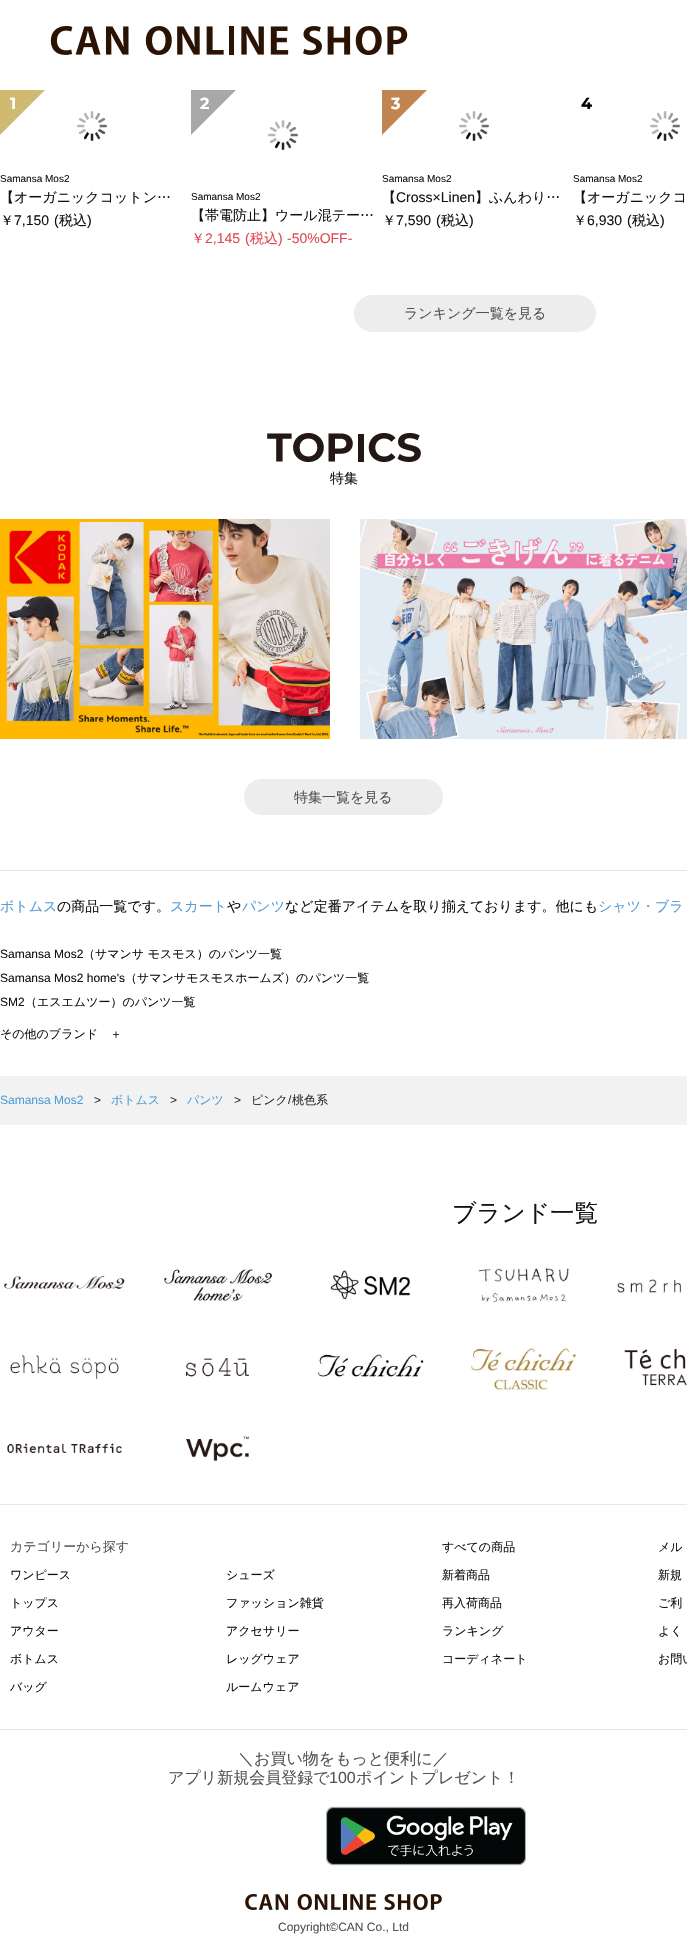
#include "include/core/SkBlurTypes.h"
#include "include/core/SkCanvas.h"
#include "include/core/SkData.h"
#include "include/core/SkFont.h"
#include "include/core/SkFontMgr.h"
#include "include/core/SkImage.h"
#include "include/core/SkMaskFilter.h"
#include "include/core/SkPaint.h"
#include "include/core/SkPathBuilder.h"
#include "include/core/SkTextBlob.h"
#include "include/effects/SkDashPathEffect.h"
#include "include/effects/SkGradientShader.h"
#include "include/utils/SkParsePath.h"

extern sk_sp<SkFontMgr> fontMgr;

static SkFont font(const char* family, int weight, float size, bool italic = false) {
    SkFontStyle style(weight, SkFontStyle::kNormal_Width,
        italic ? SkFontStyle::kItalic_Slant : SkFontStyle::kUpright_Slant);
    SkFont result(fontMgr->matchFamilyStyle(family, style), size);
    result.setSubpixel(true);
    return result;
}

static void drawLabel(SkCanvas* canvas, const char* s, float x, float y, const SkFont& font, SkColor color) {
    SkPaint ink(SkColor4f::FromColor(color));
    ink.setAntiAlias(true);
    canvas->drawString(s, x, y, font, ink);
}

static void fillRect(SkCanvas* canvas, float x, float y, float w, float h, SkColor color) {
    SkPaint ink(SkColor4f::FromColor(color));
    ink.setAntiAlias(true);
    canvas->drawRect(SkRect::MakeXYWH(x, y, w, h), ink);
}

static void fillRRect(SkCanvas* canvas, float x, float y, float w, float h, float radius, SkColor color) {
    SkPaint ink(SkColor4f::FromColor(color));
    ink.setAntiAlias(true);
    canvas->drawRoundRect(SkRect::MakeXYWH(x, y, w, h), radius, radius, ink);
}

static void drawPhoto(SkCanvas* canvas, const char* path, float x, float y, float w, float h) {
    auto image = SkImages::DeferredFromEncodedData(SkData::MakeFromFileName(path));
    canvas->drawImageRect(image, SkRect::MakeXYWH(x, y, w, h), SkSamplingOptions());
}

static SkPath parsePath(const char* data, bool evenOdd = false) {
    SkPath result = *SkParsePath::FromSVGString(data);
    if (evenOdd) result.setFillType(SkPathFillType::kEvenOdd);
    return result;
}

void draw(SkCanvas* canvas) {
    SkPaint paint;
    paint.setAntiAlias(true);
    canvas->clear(0xFFFFFFFF);
    drawPhoto(canvas, "assets/img1.png", 50, 26, 358, 29);
    paint.setColor(0xFFD0BA72);
    canvas->drawPath(parsePath("M0 90H45L0 135Z"), paint);
    SkFont font1 = font("Montserrat", 100, 16);
    drawLabel(canvas, "1", 10, 109, font1, 0xFFFFFFFF);
    drawPhoto(canvas, "assets/img2.png", 77, 111, 30, 30);
    SkFont font2 = font("Liberation Sans", 400, 10);
    drawLabel(canvas, "Samansa Mos2", 0, 182, font2, 0xFF131313);
    SkFont font3 = font("WenQuanYi Zen Hei", 500, 14);
    drawLabel(canvas, "【オーガニックコットン…", 0, 202, font3, 0xFF131313);
    drawLabel(canvas, "￥", 0, 225, font3, 0xFF131313);
    SkFont font4 = font("Liberation Sans", 400, 14);
    drawLabel(canvas, "7,150", 14, 225, font4, 0xFF131313);
    drawLabel(canvas, "(", 54, 225, font4, 0xFF131313);
    drawLabel(canvas, "税込", 59, 225, font3, 0xFF131313);
    drawLabel(canvas, ")", 87, 225, font4, 0xFF131313);
    paint.setColor(0xFFA8A8A8);
    canvas->drawPath(parsePath("M191 90H236L191 135Z"), paint);
    drawLabel(canvas, "2", 200, 109, font1, 0xFFFFFFFF);
    drawPhoto(canvas, "assets/img2.png", 268, 120, 30, 30);
    drawLabel(canvas, "Samansa Mos2", 191, 200, font2, 0xFF131313);
    drawLabel(canvas, "【帯電防止】ウール混テー…", 191, 220, font3, 0xFF131313);
    drawLabel(canvas, "￥", 191, 243, font3, 0xFFE04954);
    drawLabel(canvas, "2,145", 205, 243, font4, 0xFFE04954);
    drawLabel(canvas, "(", 245, 243, font4, 0xFFE04954);
    drawLabel(canvas, "税込", 250, 243, font3, 0xFFE04954);
    drawLabel(canvas, ")", 278, 243, font4, 0xFFE04954);
    drawLabel(canvas, "-50%OFF-", 287, 243, font4, 0xFFE04954);
    paint.setColor(0xFFC08550);
    canvas->drawPath(parsePath("M382 90H427L382 135Z"), paint);
    drawLabel(canvas, "3", 391, 109, font1, 0xFFFFFFFF);
    drawPhoto(canvas, "assets/img3.png", 459, 111, 30, 30);
    drawLabel(canvas, "Samansa Mos2", 382, 182, font2, 0xFF131313);
    drawLabel(canvas, "【", 382, 202, font3, 0xFF131313);
    drawLabel(canvas, "Cross×Linen", 396, 202, font4, 0xFF131313);
    drawLabel(canvas, "】ふんわり…", 475, 202, font3, 0xFF131313);
    drawLabel(canvas, "￥", 382, 225, font3, 0xFF131313);
    drawLabel(canvas, "7,590", 396, 225, font4, 0xFF131313);
    drawLabel(canvas, "(", 436, 225, font4, 0xFF131313);
    drawLabel(canvas, "税込", 441, 225, font3, 0xFF131313);
    drawLabel(canvas, ")", 469, 225, font4, 0xFF131313);
    drawLabel(canvas, "4", 581, 109, font1, 0xFF000000);
    drawPhoto(canvas, "assets/img3.png", 650, 111, 30, 30);
    drawLabel(canvas, "Samansa Mos2", 573, 182, font2, 0xFF131313);
    drawLabel(canvas, "【オーガニックコ", 573, 202, font3, 0xFF131313);
    drawLabel(canvas, "￥", 573, 225, font3, 0xFF131313);
    drawLabel(canvas, "6,930", 587, 225, font4, 0xFF131313);
    drawLabel(canvas, "(", 627, 225, font4, 0xFF131313);
    drawLabel(canvas, "税込", 632, 225, font3, 0xFF131313);
    drawLabel(canvas, ")", 660, 225, font4, 0xFF131313);
    fillRRect(canvas, 354, 295, 242, 37, 18.5f, 0xFFEDEDED);
    drawLabel(canvas, "ランキング一覧を見る", 404, 318, font3, 0xFF535353);
    drawPhoto(canvas, "assets/img4.png", 267, 433, 154, 29);
    drawLabel(canvas, "特集", 330, 483, font3, 0xFF131313);
    drawPhoto(canvas, "assets/img5.png", 0, 519, 330, 220);
    drawPhoto(canvas, "assets/img6.png", 360, 519, 327, 220);
    fillRRect(canvas, 244, 779, 199, 36, 18, 0xFFEDEDED);
    drawLabel(canvas, "特集一覧を見る", 294, 802, font3, 0xFF535353);
    fillRect(canvas, 0, 870, 687, 1, 0xFFE6E6E6);
    drawLabel(canvas, "ボトムス", 0, 911, font3, 0xFF5B9BD5);
    drawLabel(canvas, "の商品一覧です。", 57, 911, font3, 0xFF131313);
    drawLabel(canvas, "スカート", 170, 911, font3, 0xFF5B9BD5);
    drawLabel(canvas, "や", 227, 911, font3, 0xFF131313);
    drawLabel(canvas, "パンツ", 242, 911, font3, 0xFF5B9BD5);
    drawLabel(canvas, "など定番アイテムを取り揃えております。他にも", 285, 911, font3, 0xFF131313);
    drawLabel(canvas, "シャツ・ブラ", 598, 911, font3, 0xFF5B9BD5);
    SkFont font5 = font("Liberation Sans", 400, 12);
    drawLabel(canvas, "Samansa Mos2", 0, 958, font5, 0xFF131313);
    SkFont font6 = font("WenQuanYi Zen Hei", 500, 12);
    drawLabel(canvas, "（サマンサ モスモス）のパンツ一覧", 83, 958, font6, 0xFF131313);
    drawLabel(canvas, "Samansa Mos2 home's", 0, 982, font5, 0xFF131313);
    drawLabel(canvas, "（サマンサモスモスホームズ）のパンツ一覧", 125, 982, font6, 0xFF131313);
    drawLabel(canvas, "SM2", 0, 1006, font5, 0xFF131313);
    drawLabel(canvas, "（エスエムツー）のパンツ一覧", 25, 1006, font6, 0xFF131313);
    drawLabel(canvas, "その他のブランド　＋", 0, 1038, font6, 0xFF131313);
    fillRect(canvas, 0, 1076, 687, 49, 0xFFF2F2F2);
    drawLabel(canvas, "Samansa Mos2", 0, 1104, font5, 0xFF4C9ED9);
    drawLabel(canvas, ">", 94, 1104, font5, 0xFF333333);
    drawLabel(canvas, "ボトムス", 111, 1104, font6, 0xFF4C9ED9);
    drawLabel(canvas, ">", 170, 1104, font5, 0xFF333333);
    drawLabel(canvas, "パンツ", 187, 1104, font6, 0xFF4C9ED9);
    drawLabel(canvas, ">", 234, 1104, font5, 0xFF333333);
    drawLabel(canvas, "ピンク", 251, 1104, font6, 0xFF333333);
    drawLabel(canvas, "/", 288, 1104, font5, 0xFF333333);
    drawLabel(canvas, "桃色系", 292, 1104, font6, 0xFF333333);
    SkFont font7 = font("WenQuanYi Zen Hei", 500, 24);
    drawLabel(canvas, "ブランド一覧", 452, 1221, font7, 0xFF131313);
    drawPhoto(canvas, "assets/img7.png", 3, 1276, 122, 13);
    drawPhoto(canvas, "assets/img8.png", 164, 1268, 108, 33);
    drawPhoto(canvas, "assets/img9.png", 330, 1270, 80, 31);
    drawPhoto(canvas, "assets/img10.png", 477, 1268, 93, 35);
    drawPhoto(canvas, "assets/img11.png", 615, 1279, 72, 17);
    drawPhoto(canvas, "assets/img12.png", 10, 1353, 109, 26);
    drawPhoto(canvas, "assets/img13.png", 186, 1358, 63, 19);
    drawPhoto(canvas, "assets/img14.png", 317, 1354, 107, 23);
    drawPhoto(canvas, "assets/img15.png", 471, 1347, 106, 44);
    drawPhoto(canvas, "assets/img16.png", 624, 1348, 63, 38);
    drawPhoto(canvas, "assets/img17.png", 7, 1443, 115, 10);
    drawPhoto(canvas, "assets/img18.png", 186, 1436, 63, 25);
    fillRect(canvas, 0, 1504, 687, 1, 0xFFE6E6E6);
    fillRect(canvas, 0, 1729, 687, 1, 0xFFE6E6E6);
    SkFont font8 = font("WenQuanYi Zen Hei", 500, 13);
    drawLabel(canvas, "カテゴリーから探す", 10, 1551, font8, 0xFF535353);
    drawLabel(canvas, "すべての商品", 442, 1551, font6, 0xFF131313);
    drawLabel(canvas, "新着商品", 442, 1579, font6, 0xFF131313);
    drawLabel(canvas, "再入荷商品", 442, 1607, font6, 0xFF131313);
    drawLabel(canvas, "ランキング", 442, 1635, font6, 0xFF131313);
    drawLabel(canvas, "コーディネート", 442, 1663, font6, 0xFF131313);
    drawLabel(canvas, "ワンピース", 10, 1579, font6, 0xFF131313);
    drawLabel(canvas, "トップス", 10, 1607, font6, 0xFF131313);
    drawLabel(canvas, "アウター", 10, 1635, font6, 0xFF131313);
    drawLabel(canvas, "ボトムス", 10, 1663, font6, 0xFF131313);
    drawLabel(canvas, "バッグ", 10, 1691, font6, 0xFF131313);
    drawLabel(canvas, "シューズ", 226, 1579, font6, 0xFF131313);
    drawLabel(canvas, "ファッション雑貨", 226, 1607, font6, 0xFF131313);
    drawLabel(canvas, "アクセサリー", 226, 1635, font6, 0xFF131313);
    drawLabel(canvas, "レッグウェア", 226, 1663, font6, 0xFF131313);
    drawLabel(canvas, "ルームウェア", 226, 1691, font6, 0xFF131313);
    drawLabel(canvas, "メル", 658, 1551, font6, 0xFF131313);
    drawLabel(canvas, "新規", 658, 1579, font6, 0xFF131313);
    drawLabel(canvas, "ご利", 658, 1607, font6, 0xFF131313);
    drawLabel(canvas, "よく", 658, 1635, font6, 0xFF131313);
    drawLabel(canvas, "お問い", 658, 1663, font6, 0xFF131313);
    SkFont font9 = font("WenQuanYi Zen Hei", 500, 16);
    drawLabel(canvas, "＼お買い物をもっと便利に／", 238, 1764, font9, 0xFF535353);
    drawLabel(canvas, "アプリ新規会員登録で", 168, 1783, font9, 0xFF535353);
    SkFont font10 = font("Liberation Sans", 400, 16);
    drawLabel(canvas, "100", 329, 1783, font10, 0xFF535353);
    drawLabel(canvas, "ポイントプレゼント！", 356, 1783, font9, 0xFF535353);
    drawPhoto(canvas, "assets/img19.png", 326, 1806, 200, 60);
    drawPhoto(canvas, "assets/img20.png", 245, 1894, 197, 16);
    drawLabel(canvas, "Copyright©CAN Co., Ltd", 278, 1931, font5, 0xFF535353);
}
